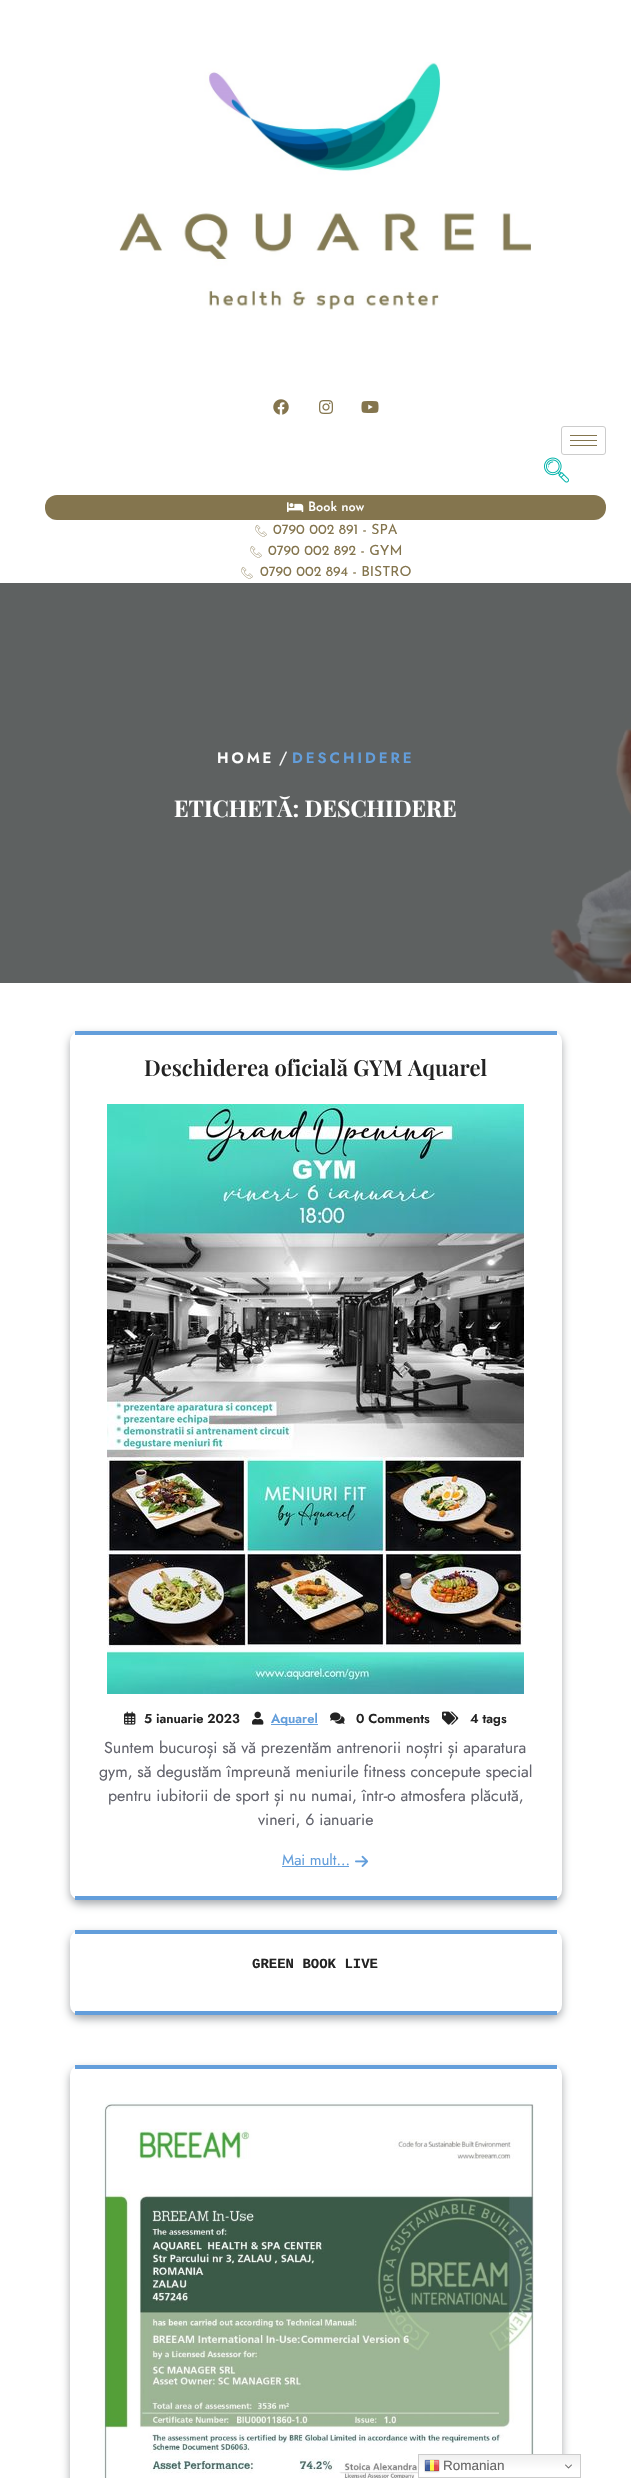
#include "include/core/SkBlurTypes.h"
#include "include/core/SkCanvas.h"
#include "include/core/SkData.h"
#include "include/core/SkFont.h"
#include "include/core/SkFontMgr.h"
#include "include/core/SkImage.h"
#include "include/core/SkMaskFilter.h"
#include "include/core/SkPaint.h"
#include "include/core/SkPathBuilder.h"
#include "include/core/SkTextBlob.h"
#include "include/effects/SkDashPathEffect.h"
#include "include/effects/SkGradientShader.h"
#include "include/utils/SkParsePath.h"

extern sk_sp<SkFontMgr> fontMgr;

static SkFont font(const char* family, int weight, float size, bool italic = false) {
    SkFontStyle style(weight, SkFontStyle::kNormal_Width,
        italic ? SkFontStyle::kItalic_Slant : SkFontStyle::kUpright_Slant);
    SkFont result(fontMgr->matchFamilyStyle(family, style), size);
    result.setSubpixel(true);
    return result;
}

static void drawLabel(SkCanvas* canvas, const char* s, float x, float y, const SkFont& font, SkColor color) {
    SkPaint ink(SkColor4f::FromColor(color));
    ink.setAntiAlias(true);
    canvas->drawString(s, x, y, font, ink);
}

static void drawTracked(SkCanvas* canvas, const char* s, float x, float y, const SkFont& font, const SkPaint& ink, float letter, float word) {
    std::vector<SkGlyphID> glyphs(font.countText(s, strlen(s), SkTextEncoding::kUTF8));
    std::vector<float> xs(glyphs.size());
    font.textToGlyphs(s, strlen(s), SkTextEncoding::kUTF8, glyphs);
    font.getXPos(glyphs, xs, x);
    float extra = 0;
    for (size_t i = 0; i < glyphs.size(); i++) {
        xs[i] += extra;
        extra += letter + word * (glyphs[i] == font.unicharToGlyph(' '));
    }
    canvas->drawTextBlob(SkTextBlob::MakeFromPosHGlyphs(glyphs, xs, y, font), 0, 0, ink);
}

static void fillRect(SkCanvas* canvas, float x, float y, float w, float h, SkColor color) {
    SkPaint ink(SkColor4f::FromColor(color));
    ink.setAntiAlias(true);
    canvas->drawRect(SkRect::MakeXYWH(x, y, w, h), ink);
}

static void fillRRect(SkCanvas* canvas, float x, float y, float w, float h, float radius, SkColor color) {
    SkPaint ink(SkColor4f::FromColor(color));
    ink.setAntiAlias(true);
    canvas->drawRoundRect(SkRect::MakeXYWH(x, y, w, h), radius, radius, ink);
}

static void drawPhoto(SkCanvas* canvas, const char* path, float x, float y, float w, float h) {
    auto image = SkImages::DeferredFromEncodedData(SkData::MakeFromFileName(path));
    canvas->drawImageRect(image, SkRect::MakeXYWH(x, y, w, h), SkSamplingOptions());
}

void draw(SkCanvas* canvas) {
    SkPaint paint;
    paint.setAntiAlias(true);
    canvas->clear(0xFFFFFFFF);
    drawPhoto(canvas, "assets/img1.png", 119, 62, 413, 248);
    drawPhoto(canvas, "assets/img2.png", 273, 399, 16, 16);
    drawPhoto(canvas, "assets/img3.png", 319, 400, 14, 14);
    drawPhoto(canvas, "assets/img4.png", 361, 401, 18, 12);
    paint.setStroke(true);
    paint.setStrokeWidth(1);
    paint.setColor(0xFFCCCCCC);
    canvas->drawRoundRect(SkRect::MakeXYWH(561.5f, 426.5f, 44, 28), 2.5f, 2.5f, paint);
    fillRect(canvas, 570, 435, 27, 1, 0xFF84754E);
    fillRect(canvas, 570, 440, 27, 1, 0xFF84754E);
    fillRect(canvas, 570, 445, 27, 1, 0xFF84754E);
    drawPhoto(canvas, "assets/img5.png", 544, 457, 25, 26);
    fillRRect(canvas, 45, 495, 561, 25, 12, 0xFF84754E);
    drawPhoto(canvas, "assets/img6.png", 287, 502, 17, 10);
    SkFont font1 = font("Josefin Sans", 500, 13);
    drawLabel(canvas, "Book now", 308, 511, font1, 0xFFFFFFFF);
    drawPhoto(canvas, "assets/img7.png", 255, 524, 12, 13);
    SkFont font2 = font("Josefin Sans", 400, 14);
    drawLabel(canvas, "0790 002 891 - SPA", 273, 534, font2, 0xFF84754E);
    drawPhoto(canvas, "assets/img7.png", 250, 545, 12, 13);
    drawLabel(canvas, "0790 002 892 - GYM", 268, 555, font2, 0xFF84754E);
    drawPhoto(canvas, "assets/img7.png", 241, 566, 12, 13);
    drawLabel(canvas, "0790 002 894 - BISTRO", 260, 576, font2, 0xFF84754E);
    fillRect(canvas, 0, 583, 631, 400, 0xFF000000);
    drawPhoto(canvas, "assets/img8.png", 0, 583, 631, 400);
    SkFont font3 = font("Jost", 600, 15);
    paint.setStroke(false);
    paint.setColor(0xFFFFFFFF);
    drawTracked(canvas, "HOME", 217, 763, font3, paint, 3, 0);
    SkFont font4 = font("Jost", 400, 16);
    drawLabel(canvas, "/", 279, 763, font4, 0xFFFFFFFF);
    paint.setColor(0xFF639EDB);
    drawTracked(canvas, "DESCHIDERE", 292, 763, font3, paint, 3, 0);
    SkFont font5 = font("Playfair Display", 700, 23);
    drawLabel(canvas, "ETICHETĂ: DESCHIDERE", 174, 817, font5, 0xFFFFFFFF);
    paint.setColor(0xFFA7AAAD);
    paint.setMaskFilter(SkMaskFilter::MakeBlur(kNormal_SkBlurStyle, 4.5f));
    canvas->drawRoundRect(SkRect::MakeXYWH(70, 1035, 492, 869), 10, 10, paint);
    paint.setMaskFilter(nullptr);
    fillRRect(canvas, 70, 1031, 492, 869, 10, 0xFFFFFFFF);
    fillRect(canvas, 75, 1031, 482, 4, 0xFF639EDB);
    fillRect(canvas, 75, 1896, 482, 4, 0xFF639EDB);
    SkFont font6 = font("Playfair Display", 600, 22);
    drawLabel(canvas, "Deschiderea oficială GYM Aquarel", 144, 1076, font6, 0xFF232323);
    drawPhoto(canvas, "assets/img9.png", 107, 1104, 417, 590);
    drawPhoto(canvas, "assets/img10.png", 124, 1711, 12, 14);
    SkFont font7 = font("Jost", 600, 13);
    drawLabel(canvas, "5 ianuarie 2023", 144, 1723, font7, 0xFF232323);
    drawPhoto(canvas, "assets/img11.png", 252, 1711, 12, 14);
    fillRect(canvas, 271, 1724, 47, 1, 0xFF639EDB);
    drawLabel(canvas, "Aquarel", 271, 1723, font7, 0xFF639EDB);
    drawPhoto(canvas, "assets/img12.png", 330, 1712, 15, 12);
    drawLabel(canvas, "0 Comments", 356, 1723, font7, 0xFF232323);
    drawPhoto(canvas, "assets/img13.png", 442, 1711, 17, 14);
    drawLabel(canvas, "4 tags", 470, 1723, font7, 0xFF232323);
    drawLabel(canvas, "Suntem bucuroși să vă prezentăm antrenorii noștri și aparatura", 104, 1753, font4, 0xFF63646D);
    drawLabel(canvas, "gym, să degustăm împreună meniurile fitness concepute special", 99, 1777, font4, 0xFF63646D);
    drawLabel(canvas, "pentru iubitorii de sport și nu numai, într-o atmosfera plăcută,", 108, 1801, font4, 0xFF63646D);
    drawLabel(canvas, "vineri, 6 ianuarie", 258, 1825, font4, 0xFF63646D);
    SkFont font8 = font("Jost", 400, 15);
    drawLabel(canvas, "Mai mult...", 282, 1865, font8, 0xFF639EDB);
    fillRect(canvas, 282, 1866, 67, 1, 0xFF639EDB);
    drawPhoto(canvas, "assets/img14.png", 355, 1855, 14, 12);
    paint.setMaskFilter(SkMaskFilter::MakeBlur(kNormal_SkBlurStyle, 4.5f));
    canvas->drawRoundRect(SkRect::MakeXYWH(70, 1934, 492, 85), 10, 10, paint);
    paint.setMaskFilter(nullptr);
    fillRRect(canvas, 70, 1930, 492, 85, 10, 0xFFFFFFFF);
    fillRect(canvas, 75, 1930, 482, 4, 0xFF639EDB);
    fillRect(canvas, 75, 2011, 482, 4, 0xFF639EDB);
    SkFont font9 = font("Liberation Mono", 700, 14);
    drawLabel(canvas, "GREEN BOOK LIVE", 252, 1968, font9, 0xFF232323);
    paint.setMaskFilter(SkMaskFilter::MakeBlur(kNormal_SkBlurStyle, 4.5f));
    canvas->drawRoundRect(SkRect::MakeXYWH(70, 2069, 492, 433), 10, 10, paint);
    paint.setMaskFilter(nullptr);
    fillRRect(canvas, 70, 2065, 492, 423, 10, 0xFFFFFFFF);
    fillRect(canvas, 75, 2065, 482, 4, 0xFF639EDB);
    drawPhoto(canvas, "assets/img15.png", 100, 2102, 434, 376);
    {
        const SkColor colors[] = {0xFFEFEFEF, 0xFFFFFFFF};
        const float stops[] = {0, 0.7f};
        const SkPoint ends[] = {{500, 2454}, {500, 2478}};
        paint.setShader(SkGradientShader::MakeLinear(ends, colors, stops, 2, SkTileMode::kClamp));
        paint.setAlpha(255);
    }
    canvas->drawRect(SkRect::MakeXYWH(419, 2455, 161, 22), paint);
    paint.setStroke(true);
    paint.setShader(nullptr);
    paint.setColor(0xFFCCCCCC);
    canvas->drawRect(SkRect::MakeXYWH(418.5f, 2454.5f, 162, 23), paint);
    drawPhoto(canvas, "assets/img16.png", 424, 2459, 16, 14);
    SkFont font10 = font("Liberation Sans", 400, 13.5f);
    drawLabel(canvas, "Romanian", 443, 2470, font10, 0xFF666666);
    drawPhoto(canvas, "assets/img17.png", 565, 2464, 7, 5);
}
